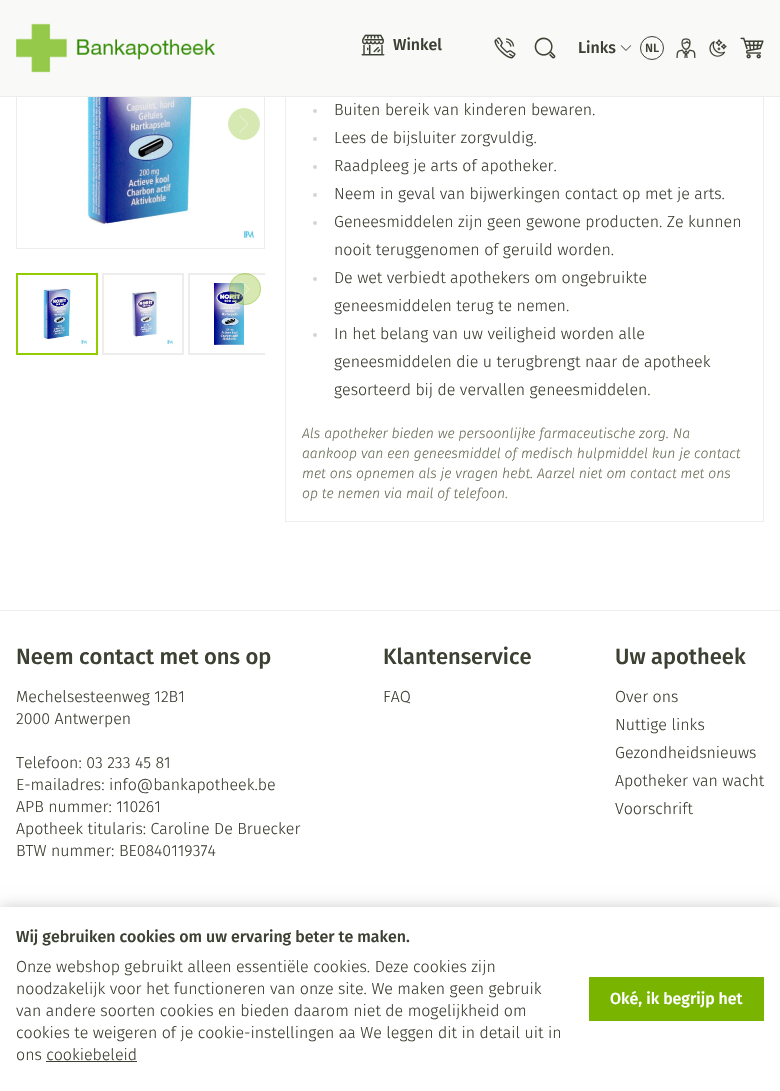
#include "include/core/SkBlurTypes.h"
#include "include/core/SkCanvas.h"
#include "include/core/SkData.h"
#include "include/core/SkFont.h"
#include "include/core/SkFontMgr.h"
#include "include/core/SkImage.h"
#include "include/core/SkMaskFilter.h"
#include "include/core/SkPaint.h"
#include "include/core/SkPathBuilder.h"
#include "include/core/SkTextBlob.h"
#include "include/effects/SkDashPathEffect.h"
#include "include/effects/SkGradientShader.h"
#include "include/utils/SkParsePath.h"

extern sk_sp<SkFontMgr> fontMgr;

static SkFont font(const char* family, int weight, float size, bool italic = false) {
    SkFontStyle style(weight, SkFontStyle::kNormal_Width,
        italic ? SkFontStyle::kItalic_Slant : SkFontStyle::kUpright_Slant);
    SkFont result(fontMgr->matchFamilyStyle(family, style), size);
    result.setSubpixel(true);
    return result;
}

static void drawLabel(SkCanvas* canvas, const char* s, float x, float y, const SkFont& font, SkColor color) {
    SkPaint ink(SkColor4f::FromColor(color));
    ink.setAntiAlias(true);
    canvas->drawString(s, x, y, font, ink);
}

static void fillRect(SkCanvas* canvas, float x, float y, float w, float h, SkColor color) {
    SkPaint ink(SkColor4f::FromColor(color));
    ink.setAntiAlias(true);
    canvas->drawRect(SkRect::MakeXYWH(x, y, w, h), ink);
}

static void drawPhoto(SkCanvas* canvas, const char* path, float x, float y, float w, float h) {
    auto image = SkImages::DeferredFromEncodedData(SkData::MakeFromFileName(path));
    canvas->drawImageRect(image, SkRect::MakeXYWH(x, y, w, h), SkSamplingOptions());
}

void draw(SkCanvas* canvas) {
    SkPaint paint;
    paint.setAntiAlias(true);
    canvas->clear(0xFFFFFFFF);
    paint.setStroke(true);
    paint.setStrokeWidth(1);
    paint.setColor(0xFFEDEEEB);
    canvas->drawRect(SkRect::MakeXYWH(16.5f, 0.5f, 248, 248), paint);
    canvas->drawRect(SkRect::MakeXYWH(285.5f, -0.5f, 478, 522), paint);
    fillRect(canvas, 0, 96, 780, 1, 0xFFEDEEEB);
    fillRect(canvas, 0, 0, 780, 96, 0xFFF9F9F8);
    drawPhoto(canvas, "assets/img1.png", 16, 23, 199, 50);
    drawPhoto(canvas, "assets/img2.png", 361, 34, 24, 22);
    SkFont font1 = font("Fira Sans", 500, 16);
    drawLabel(canvas, "Winkel", 393, 50, font1, 0xFF3D4133);
    drawPhoto(canvas, "assets/img3.png", 494, 37, 22, 22);
    drawPhoto(canvas, "assets/img4.png", 534, 37, 22, 22);
    drawLabel(canvas, "Links", 578, 53, font1, 0xFF3D4133);
    drawPhoto(canvas, "assets/img5.png", 620, 45, 12, 6);
    paint.setColor(0xFF3D4133);
    canvas->drawCircle(652, 48, 11.5f, paint);
    SkFont font2 = font("Fira Sans", 500, 12);
    drawLabel(canvas, "NL", 645, 52, font2, 0xFF3D4133);
    drawPhoto(canvas, "assets/img6.png", 676, 38, 20, 20);
    drawPhoto(canvas, "assets/img7.png", 709, 39, 18, 18);
    drawPhoto(canvas, "assets/img8.png", 740, 37, 24, 22);
    drawPhoto(canvas, "assets/img9.png", 87, 97, 168, 142);
    paint.setStroke(false);
    paint.setColor(0xFFD7E9B3);
    canvas->drawCircle(244, 124, 15.5f, paint);
    paint.setStroke(true);
    canvas->drawCircle(244, 124, 15.5f, paint);
    drawPhoto(canvas, "assets/img10.png", 239, 115, 10, 18);
    paint.setStrokeWidth(2);
    paint.setColor(0xFF92CD00);
    canvas->drawRect(SkRect::MakeXYWH(17, 274, 80, 80), paint);
    drawPhoto(canvas, "assets/img11.png", 43, 288, 44, 57);
    paint.setColor(0xFFEDEEEB);
    canvas->drawRect(SkRect::MakeXYWH(103, 274, 80, 80), paint);
    drawPhoto(canvas, "assets/img12.png", 132, 291, 41, 54);
    canvas->save();
    canvas->clipRect(SkRect::MakeXYWH(16, 273, 249, 82));
    canvas->drawRect(SkRect::MakeXYWH(189, 274, 80, 80), paint);
    canvas->restore();
    drawPhoto(canvas, "assets/img13.png", 214, 283, 30, 62);
    paint.setStroke(false);
    paint.setColor(0x4D79B401);
    canvas->drawCircle(245, 289, 16, paint);
    paint.setStroke(true);
    paint.setStrokeWidth(1);
    canvas->drawCircle(245, 289, 15.5f, paint);
    drawPhoto(canvas, "assets/img14.png", 240, 280, 10, 18);
    paint.setStroke(false);
    paint.setColor(0xFFD1D5DB);
    canvas->drawCircle(315, 111, 2, paint);
    SkFont font3 = font("Fira Sans", 300, 16);
    drawLabel(canvas, "Buiten bereik van kinderen bewaren.", 334, 115, font3, 0xFF3D4133);
    canvas->drawCircle(315, 139, 2, paint);
    drawLabel(canvas, "Lees de bijsluiter zorgvuldig.", 334, 143, font3, 0xFF3D4133);
    canvas->drawCircle(315, 167, 2, paint);
    drawLabel(canvas, "Raadpleeg je arts of apotheker.", 334, 171, font3, 0xFF3D4133);
    canvas->drawCircle(315, 195, 2, paint);
    drawLabel(canvas, "Neem in geval van bijwerkingen contact op met je arts.", 334, 199, font3, 0xFF3D4133);
    canvas->drawCircle(315, 223, 2, paint);
    drawLabel(canvas, "Geneesmiddelen zijn geen gewone producten. Ze kunnen", 334, 227, font3, 0xFF3D4133);
    drawLabel(canvas, "nooit teruggenomen of geruild worden.", 334, 255, font3, 0xFF3D4133);
    canvas->drawCircle(315, 279, 2, paint);
    drawLabel(canvas, "De wet verbiedt apothekers om ongebruikte", 334, 283, font3, 0xFF3D4133);
    drawLabel(canvas, "geneesmiddelen terug te nemen.", 334, 311, font3, 0xFF3D4133);
    canvas->drawCircle(315, 335, 2, paint);
    drawLabel(canvas, "In het belang van uw veiligheid worden alle", 334, 339, font3, 0xFF3D4133);
    drawLabel(canvas, "geneesmiddelen die u terugbrengt naar de apotheek", 334, 367, font3, 0xFF3D4133);
    drawLabel(canvas, "gesorteerd bij de vervallen geneesmiddelen.", 334, 395, font3, 0xFF3D4133);
    SkFont font4 = font("Fira Sans", 300, 14, true);
    drawLabel(canvas, "Als apotheker bieden we persoonlijke farmaceutische zorg. Na", 302, 438, font4, 0xFF686F57);
    drawLabel(canvas, "aankoop van een geneesmiddel of medisch hulpmiddel kun je contact", 302, 458, font4, 0xFF686F57);
    drawLabel(canvas, "met ons opnemen als je vragen hebt. Aarzel niet om contact met ons", 302, 478, font4, 0xFF686F57);
    drawLabel(canvas, "op te nemen via mail of telefoon.", 302, 498, font4, 0xFF686F57);
    fillRect(canvas, 0, 610, 780, 1, 0xFFEDEEEB);
    SkFont font5 = font("Fira Sans", 500, 22);
    drawLabel(canvas, "Neem contact met ons op", 16, 664, font5, 0xFF3D4133);
    drawLabel(canvas, "Mechelsesteenweg 12B1", 16, 702, font3, 0xFF3D4133);
    drawLabel(canvas, "2000 Antwerpen", 16, 724, font3, 0xFF3D4133);
    drawLabel(canvas, "Telefoon: 03 233 45 81", 16, 768, font3, 0xFF3D4133);
    drawLabel(canvas, "E-mailadres: info@bankapotheek.be", 16, 790, font3, 0xFF3D4133);
    drawLabel(canvas, "APB nummer: 110261", 16, 812, font3, 0xFF3D4133);
    drawLabel(canvas, "Apotheek titularis: Caroline De Bruecker", 16, 834, font3, 0xFF3D4133);
    drawLabel(canvas, "BTW nummer: BE0840119374", 16, 856, font3, 0xFF3D4133);
    drawLabel(canvas, "Klantenservice", 383, 664, font5, 0xFF3D4133);
    drawLabel(canvas, "FAQ", 383, 702, font3, 0xFF3D4133);
    drawLabel(canvas, "Uw apotheek", 615, 664, font5, 0xFF3D4133);
    drawLabel(canvas, "Over ons", 615, 702, font3, 0xFF3D4133);
    drawLabel(canvas, "Nuttige links", 615, 730, font3, 0xFF3D4133);
    drawLabel(canvas, "Gezondheidsnieuws", 615, 758, font3, 0xFF3D4133);
    drawLabel(canvas, "Apotheker van wacht", 615, 786, font3, 0xFF3D4133);
    drawLabel(canvas, "Voorschrift", 615, 814, font3, 0xFF3D4133);
    paint.setColor(0x33000000);
    paint.setMaskFilter(SkMaskFilter::MakeBlur(kNormal_SkBlurStyle, 7.5f));
    canvas->drawRect(SkRect::MakeXYWH(0, 907, 780, 184), paint);
    paint.setMaskFilter(nullptr);
    fillRect(canvas, 0, 907, 780, 184, 0xFFFFFFFF);
    drawLabel(canvas, "Wij gebruiken cookies om uw ervaring beter te maken.", 16, 942, font1, 0xFF3D4133);
    drawLabel(canvas, "Onze webshop gebruikt alleen essentiële cookies. Deze cookies zijn", 16, 972, font3, 0xFF3D4133);
    drawLabel(canvas, "noodzakelijk voor het functioneren van onze site. We maken geen gebruik", 16, 994, font3, 0xFF3D4133);
    drawLabel(canvas, "van andere soorten cookies en bieden daarom niet de mogelijkheid om", 16, 1016, font3, 0xFF3D4133);
    drawLabel(canvas, "cookies te weigeren of je cookie-instellingen aa We leggen dit in detail uit in", 16, 1038, font3, 0xFF3D4133);
    drawLabel(canvas, "ons cookiebeleid", 16, 1060, font3, 0xFF3D4133);
    fillRect(canvas, 46, 1061, 91, 1, 0xFF3D4133);
    fillRect(canvas, 589, 977, 175, 44, 0xFF79B401);
    drawLabel(canvas, "Oké, ik begrijp het", 610, 1004, font1, 0xFFFFFFFF);
}
